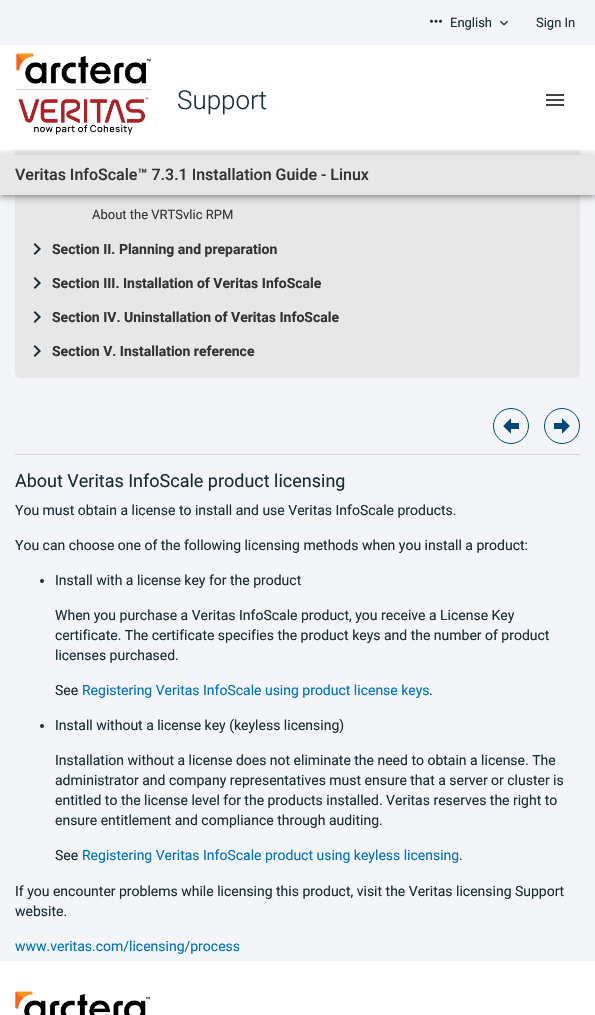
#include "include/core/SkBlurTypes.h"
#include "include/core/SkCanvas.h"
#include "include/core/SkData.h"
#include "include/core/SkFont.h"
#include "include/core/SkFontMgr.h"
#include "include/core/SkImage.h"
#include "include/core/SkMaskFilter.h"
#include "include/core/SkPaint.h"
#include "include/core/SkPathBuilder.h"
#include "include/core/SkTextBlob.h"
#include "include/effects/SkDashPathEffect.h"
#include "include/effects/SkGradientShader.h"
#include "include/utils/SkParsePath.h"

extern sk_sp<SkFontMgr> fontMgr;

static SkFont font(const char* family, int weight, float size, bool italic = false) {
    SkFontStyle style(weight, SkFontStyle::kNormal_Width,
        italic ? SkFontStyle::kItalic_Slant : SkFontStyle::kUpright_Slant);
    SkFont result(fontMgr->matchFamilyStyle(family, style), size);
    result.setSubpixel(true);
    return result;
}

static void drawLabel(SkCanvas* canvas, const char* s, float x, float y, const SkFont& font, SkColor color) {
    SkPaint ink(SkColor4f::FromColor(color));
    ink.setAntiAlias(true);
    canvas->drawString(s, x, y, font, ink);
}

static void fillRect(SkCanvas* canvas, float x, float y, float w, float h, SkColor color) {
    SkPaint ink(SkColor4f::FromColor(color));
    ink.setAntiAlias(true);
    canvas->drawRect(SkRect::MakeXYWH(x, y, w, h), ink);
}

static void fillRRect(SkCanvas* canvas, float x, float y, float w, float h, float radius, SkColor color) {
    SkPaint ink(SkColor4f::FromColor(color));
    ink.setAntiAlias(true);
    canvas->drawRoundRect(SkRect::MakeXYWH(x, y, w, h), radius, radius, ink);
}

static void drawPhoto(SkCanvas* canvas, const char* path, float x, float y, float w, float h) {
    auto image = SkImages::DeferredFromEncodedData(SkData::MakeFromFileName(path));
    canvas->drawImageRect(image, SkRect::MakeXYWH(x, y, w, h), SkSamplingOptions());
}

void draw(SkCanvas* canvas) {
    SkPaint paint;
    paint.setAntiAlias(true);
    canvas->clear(0xFFF4F5F8);
    fillRRect(canvas, 15, -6, 565, 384, 6, 0xFFE7E7E7);
    fillRect(canvas, 15, 0, 565, 45, 0xFFF4F5F8);
    drawPhoto(canvas, "assets/img1.png", 430, 19, 12, 4);
    SkFont font1 = font("Roboto", 400, 13);
    drawLabel(canvas, "English", 450, 27, font1, 0xFF182C35);
    drawPhoto(canvas, "assets/img2.png", 500, 20, 8, 6);
    drawLabel(canvas, "Sign In", 536, 27, font1, 0xFF182C35);
    paint.setColor(0x1F000000);
    paint.setMaskFilter(SkMaskFilter::MakeBlur(kNormal_SkBlurStyle, 5));
    canvas->drawRect(SkRect::MakeXYWH(0, 156, 595, 40), paint);
    paint.setMaskFilter(nullptr);
    fillRect(canvas, 0, 45, 595, 105, 0xFFFFFFFF);
    drawPhoto(canvas, "assets/img3.png", 16, 53, 135, 31);
    fillRect(canvas, 16, 89, 135, 1, 0xFFD5D5D5);
    drawPhoto(canvas, "assets/img4.png", 18, 97, 131, 38);
    SkFont font2 = font("Roboto", 300, 26);
    drawLabel(canvas, "Support", 177, 109, font2, 0xFF182C35);
    drawPhoto(canvas, "assets/img5.png", 546, 94, 18, 12);
    paint.setColor(0x24000000);
    paint.setMaskFilter(SkMaskFilter::MakeBlur(kNormal_SkBlurStyle, 2.5f));
    canvas->drawRect(SkRect::MakeXYWH(0, 159, 595, 40), paint);
    paint.setMaskFilter(nullptr);
    paint.setColor(0x33000000);
    paint.setMaskFilter(SkMaskFilter::MakeBlur(kNormal_SkBlurStyle, 2));
    canvas->drawRect(SkRect::MakeXYWH(1, 158, 593, 38), paint);
    paint.setMaskFilter(nullptr);
    fillRect(canvas, 0, 155, 595, 40, 0xFFE7E7E7);
    SkFont font3 = font("Roboto", 500, 16);
    drawLabel(canvas, "Veritas InfoScale™ 7.3.1 Installation Guide - Linux", 15, 180, font3, 0xFF333333);
    drawLabel(canvas, "About the VRTSvlic RPM", 92, 219, font1, 0xFF333333);
    drawPhoto(canvas, "assets/img6.png", 33, 243, 8, 12);
    SkFont font4 = font("Roboto", 700, 14);
    drawLabel(canvas, "Section II. Planning and preparation", 52, 254, font4, 0xFF333333);
    drawPhoto(canvas, "assets/img6.png", 33, 277, 8, 12);
    drawLabel(canvas, "Section III. Installation of Veritas InfoScale", 52, 288, font4, 0xFF333333);
    drawPhoto(canvas, "assets/img6.png", 33, 311, 8, 12);
    drawLabel(canvas, "Section IV. Uninstallation of Veritas InfoScale", 52, 322, font4, 0xFF333333);
    drawPhoto(canvas, "assets/img6.png", 33, 345, 8, 12);
    drawLabel(canvas, "Section V. Installation reference", 52, 356, font4, 0xFF333333);
    fillRect(canvas, 15, 454, 565, 1, 0xFFD5D5D5);
    paint.setStroke(true);
    paint.setStrokeWidth(1);
    paint.setColor(0xFF004677);
    canvas->drawCircle(511, 426, 17.5f, paint);
    drawPhoto(canvas, "assets/img7.png", 503, 418, 16, 16);
    canvas->drawCircle(562, 426, 17.5f, paint);
    drawPhoto(canvas, "assets/img8.png", 554, 418, 16, 16);
    SkFont font5 = font("Roboto", 400, 18);
    drawLabel(canvas, "About Veritas InfoScale product licensing", 15, 487, font5, 0xFF182C35);
    SkFont font6 = font("Roboto", 400, 14);
    drawLabel(canvas, "You must obtain a license to install and use Veritas InfoScale products.", 15, 515, font6, 0xFF182C35);
    drawLabel(canvas, "You can choose one of the following licensing methods when you install a product:", 15, 550, font6, 0xFF182C35);
    paint.setStroke(false);
    paint.setColor(0xFF182C35);
    canvas->drawCircle(42, 581, 2, paint);
    drawLabel(canvas, "Install with a license key for the product", 55, 585, font6, 0xFF182C35);
    drawLabel(canvas, "When you purchase a Veritas InfoScale product, you receive a License Key", 55, 620, font6, 0xFF182C35);
    drawLabel(canvas, "certificate. The certificate specifies the product keys and the number of product", 55, 640, font6, 0xFF182C35);
    drawLabel(canvas, "licenses purchased.", 55, 660, font6, 0xFF182C35);
    drawLabel(canvas, "See", 55, 695, font6, 0xFF182C35);
    drawLabel(canvas, "Registering Veritas InfoScale using product license keys", 82, 695, font6, 0xFF0070BD);
    drawLabel(canvas, ".", 429, 695, font6, 0xFF182C35);
    canvas->drawCircle(42, 726, 2, paint);
    drawLabel(canvas, "Install without a license key (keyless licensing)", 55, 730, font6, 0xFF182C35);
    drawLabel(canvas, "Installation without a license does not eliminate the need to obtain a license. The", 55, 765, font6, 0xFF182C35);
    drawLabel(canvas, "administrator and company representatives must ensure that a server or cluster is", 55, 785, font6, 0xFF182C35);
    drawLabel(canvas, "entitled to the license level for the products installed. Veritas reserves the right to", 55, 805, font6, 0xFF182C35);
    drawLabel(canvas, "ensure entitlement and compliance through auditing.", 55, 825, font6, 0xFF182C35);
    drawLabel(canvas, "See", 55, 860, font6, 0xFF182C35);
    drawLabel(canvas, "Registering Veritas InfoScale product using keyless licensing", 82, 860, font6, 0xFF0070BD);
    drawLabel(canvas, ".", 459, 860, font6, 0xFF182C35);
    drawLabel(canvas, "If you encounter problems while licensing this product, visit the Veritas licensing Support", 15, 896, font6, 0xFF182C35);
    drawLabel(canvas, "website.", 15, 916, font6, 0xFF182C35);
    drawLabel(canvas, "www.veritas.com/licensing/process", 15, 951, font6, 0xFF0070BD);
    fillRect(canvas, 0, 961, 595, 54, 0xFFFFFFFF);
    drawPhoto(canvas, "assets/img9.png", 15, 991, 135, 24);
}
